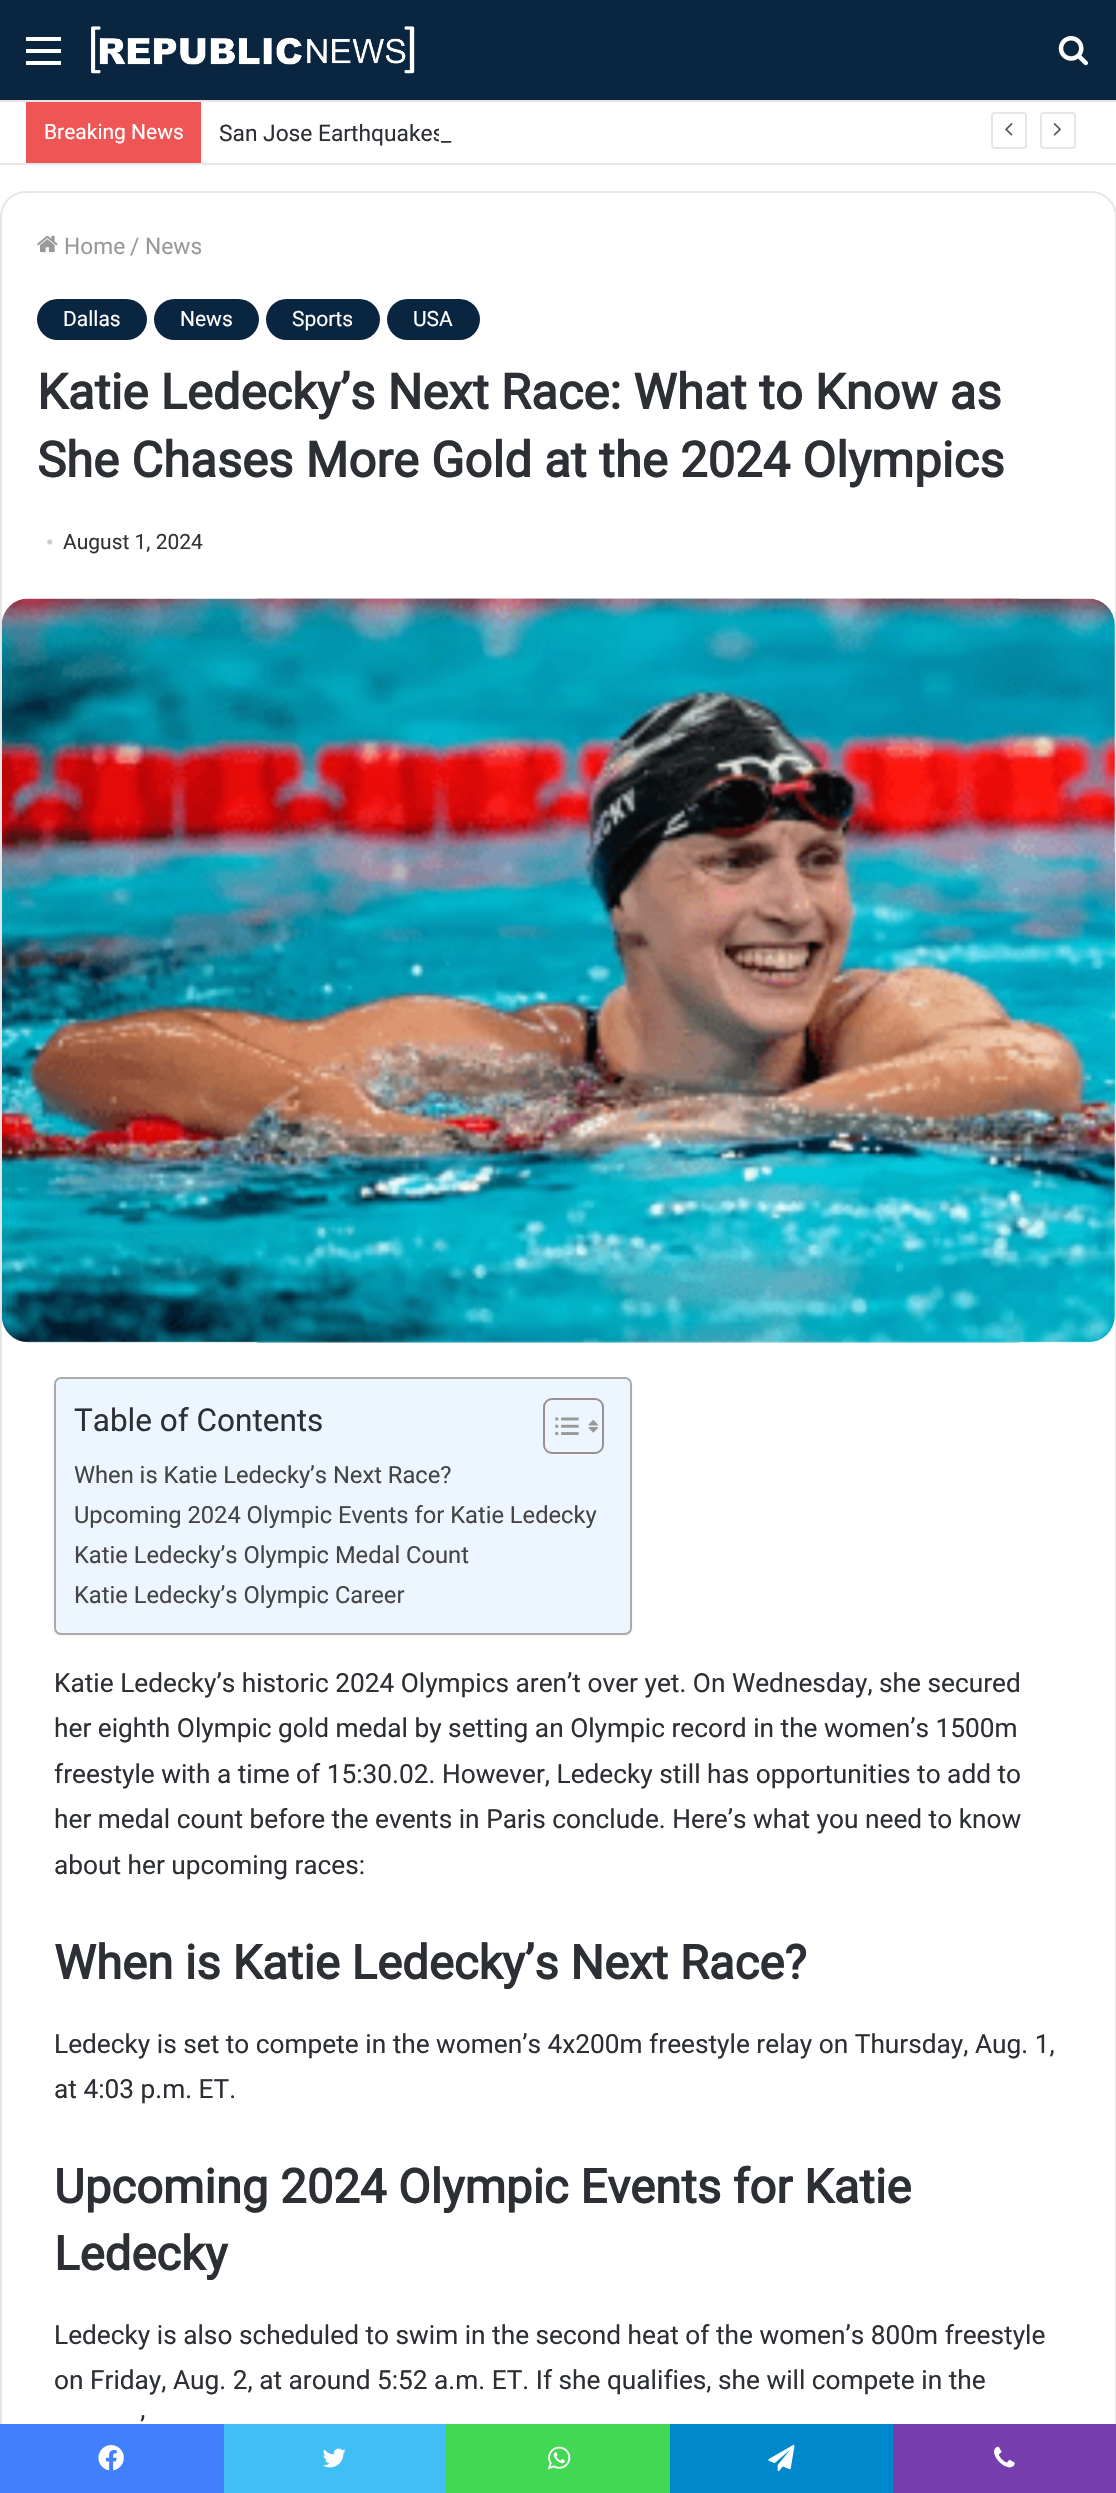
#include "include/core/SkBlurTypes.h"
#include "include/core/SkCanvas.h"
#include "include/core/SkData.h"
#include "include/core/SkFont.h"
#include "include/core/SkFontMgr.h"
#include "include/core/SkImage.h"
#include "include/core/SkMaskFilter.h"
#include "include/core/SkPaint.h"
#include "include/core/SkPathBuilder.h"
#include "include/core/SkTextBlob.h"
#include "include/effects/SkDashPathEffect.h"
#include "include/effects/SkGradientShader.h"
#include "include/utils/SkParsePath.h"

extern sk_sp<SkFontMgr> fontMgr;

static SkFont font(const char* family, int weight, float size, bool italic = false) {
    SkFontStyle style(weight, SkFontStyle::kNormal_Width,
        italic ? SkFontStyle::kItalic_Slant : SkFontStyle::kUpright_Slant);
    SkFont result(fontMgr->matchFamilyStyle(family, style), size);
    result.setSubpixel(true);
    return result;
}

static void drawLabel(SkCanvas* canvas, const char* s, float x, float y, const SkFont& font, SkColor color) {
    SkPaint ink(SkColor4f::FromColor(color));
    ink.setAntiAlias(true);
    canvas->drawString(s, x, y, font, ink);
}

static void fillRect(SkCanvas* canvas, float x, float y, float w, float h, SkColor color) {
    SkPaint ink(SkColor4f::FromColor(color));
    ink.setAntiAlias(true);
    canvas->drawRect(SkRect::MakeXYWH(x, y, w, h), ink);
}

static void fillRRect(SkCanvas* canvas, float x, float y, float w, float h, float radius, SkColor color) {
    SkPaint ink(SkColor4f::FromColor(color));
    ink.setAntiAlias(true);
    canvas->drawRoundRect(SkRect::MakeXYWH(x, y, w, h), radius, radius, ink);
}

static void drawPhoto(SkCanvas* canvas, const char* path, float x, float y, float w, float h) {
    auto image = SkImages::DeferredFromEncodedData(SkData::MakeFromFileName(path));
    canvas->drawImageRect(image, SkRect::MakeXYWH(x, y, w, h), SkSamplingOptions());
}

void draw(SkCanvas* canvas) {
    SkPaint paint;
    paint.setAntiAlias(true);
    canvas->clear(0xFFFFFFFF);
    fillRect(canvas, 0, 0, 1116, 100, 0xFF09253F);
    fillRect(canvas, 26, 49, 35, 4, 0xFFFFFFFF);
    fillRect(canvas, 26, 37, 35, 4, 0xFFFFFFFF);
    fillRect(canvas, 26, 61, 35, 4, 0xFFFFFFFF);
    drawPhoto(canvas, "assets/img1.png", 91, 26, 324, 48);
    drawPhoto(canvas, "assets/img2.png", 1058, 36, 30, 30);
    fillRect(canvas, 0, 100, 1116, 2, 0xFFE6E6E6);
    fillRect(canvas, 0, 163, 1116, 2, 0xFFE6E6E6);
    fillRect(canvas, 26, 102, 175, 61, 0xFFF05555);
    SkFont font1 = font("Roboto", 400, 21);
    drawLabel(canvas, "Breaking News", 44, 139, font1, 0xFFFFFFFF);
    SkFont font2 = font("Roboto", 400, 22.75f);
    drawLabel(canvas, "San Jose Earthquakes", 219, 141, font2, 0xFF2C2F34);
    fillRect(canvas, 439, 128, 4, 14, 0xFFFFFFFF);
    drawLabel(canvas, "_", 441, 141, font2, 0xFF2C2F34);
    paint.setStroke(true);
    paint.setStrokeWidth(2);
    paint.setColor(0xFFE6E6E6);
    canvas->drawRoundRect(SkRect::MakeXYWH(992, 113, 34, 35), 3, 3, paint);
    drawPhoto(canvas, "assets/img3.png", 1005, 123, 8, 13);
    canvas->drawRoundRect(SkRect::MakeXYWH(1041, 113, 34, 35), 3, 3, paint);
    drawPhoto(canvas, "assets/img4.png", 1053, 123, 8, 13);
    canvas->drawRoundRect(SkRect::MakeXYWH(1, 192, 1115, 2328), 25, 25, paint);
    drawPhoto(canvas, "assets/img5.png", 37, 235, 21, 18);
    drawLabel(canvas, "Home", 64, 254, font2, 0xFF999999);
    drawLabel(canvas, "/", 130, 254, font2, 0xFF999999);
    drawLabel(canvas, "News", 145, 254, font2, 0xFF999999);
    fillRRect(canvas, 37, 299, 110, 41, 20.5f, 0xFF09253F);
    drawLabel(canvas, "Dallas", 63, 326, font1, 0xFFFFFFFF);
    fillRRect(canvas, 154, 299, 105, 41, 20.5f, 0xFF09253F);
    drawLabel(canvas, "News", 180, 326, font1, 0xFFFFFFFF);
    fillRRect(canvas, 266, 299, 114, 41, 20.5f, 0xFF09253F);
    drawLabel(canvas, "Sports", 292, 326, font1, 0xFFFFFFFF);
    fillRRect(canvas, 387, 299, 93, 41, 20.5f, 0xFF09253F);
    drawLabel(canvas, "USA", 413, 326, font1, 0xFFFFFFFF);
    SkFont font3 = font("Roboto", 700, 49);
    drawLabel(canvas, "Katie Ledecky’s Next Race: What to Know as", 37, 409, font3, 0xFF2C2F34);
    drawLabel(canvas, "She Chases More Gold at the 2024 Olympics", 37, 477, font3, 0xFF2C2F34);
    SkFont font4 = font("Liberation Serif", 400, 21);
    drawLabel(canvas, "•", 46, 549, font4, 0xFFCCCCCC);
    drawLabel(canvas, "August 1, 2024", 63, 549, font1, 0xFF333333);
    drawPhoto(canvas, "assets/img6.png", 2, 598, 1113, 745);
    paint.setStroke(false);
    paint.setColor(0x0D000000);
    paint.setMaskFilter(SkMaskFilter::MakeBlur(kNormal_SkBlurStyle, 1));
    canvas->drawRoundRect(SkRect::MakeXYWH(54, 1379, 578, 257), 7, 7, paint);
    paint.setMaskFilter(nullptr);
    paint.setColor(0xFFEDF6FF);
    canvas->drawRoundRect(SkRect::MakeXYWH(55, 1378, 576, 256), 6, 6, paint);
    paint.setStroke(true);
    paint.setColor(0xFFAAAAAA);
    canvas->drawRoundRect(SkRect::MakeXYWH(55, 1378, 576, 256), 6, 6, paint);
    SkFont font5 = font("Roboto", 400, 31.5f);
    drawLabel(canvas, "Table of Contents", 74, 1431, font5, 0xFF2C2F34);
    paint.setColor(0xFF999191);
    canvas->drawRoundRect(SkRect::MakeXYWH(544, 1399, 59, 54), 8, 8, paint);
    drawPhoto(canvas, "assets/img7.png", 555, 1417, 24, 18);
    drawPhoto(canvas, "assets/img8.png", 588, 1419, 10, 14);
    SkFont font6 = font("Roboto", 400, 23.7f);
    drawLabel(canvas, "When is Katie Ledecky’s Next Race?", 74, 1483, font6, 0xFF444444);
    drawLabel(canvas, "Upcoming 2024 Olympic Events for Katie Ledecky", 74, 1523, font6, 0xFF444444);
    drawLabel(canvas, "Katie Ledecky’s Olympic Medal Count", 74, 1563, font6, 0xFF444444);
    drawLabel(canvas, "Katie Ledecky’s Olympic Career", 74, 1603, font6, 0xFF444444);
    SkFont font7 = font("Roboto", 400, 26.25f);
    drawLabel(canvas, "Katie Ledecky’s historic 2024 Olympics aren’t over yet. On Wednesday, she secured", 54, 1692, font7, 0xFF2C2F34);
    drawLabel(canvas, "her eighth Olympic gold medal by setting an Olympic record in the women’s 1500m", 54, 1737, font7, 0xFF2C2F34);
    drawLabel(canvas, "freestyle with a time of 15:30.02. However, Ledecky still has opportunities to add to", 54, 1783, font7, 0xFF2C2F34);
    drawLabel(canvas, "her medal count before the events in Paris conclude. Here’s what you need to know", 54, 1828, font7, 0xFF2C2F34);
    drawLabel(canvas, "about her upcoming races:", 54, 1874, font7, 0xFF2C2F34);
    SkFont font8 = font("Roboto", 700, 47.25f);
    drawLabel(canvas, "When is Katie Ledecky’s Next Race?", 54, 1979, font8, 0xFF2C2F34);
    drawLabel(canvas, "Ledecky is set to compete in the women’s 4x200m freestyle relay on Thursday, Aug. 1,", 54, 2053, font7, 0xFF2C2F34);
    drawLabel(canvas, "at 4:03 p.m. ET.", 54, 2098, font7, 0xFF2C2F34);
    drawLabel(canvas, "Upcoming 2024 Olympic Events for Katie", 54, 2203, font8, 0xFF2C2F34);
    drawLabel(canvas, "Ledecky", 54, 2270, font8, 0xFF2C2F34);
    drawLabel(canvas, "Ledecky is also scheduled to swim in the second heat of the women’s 800m freestyle", 54, 2344, font7, 0xFF2C2F34);
    drawLabel(canvas, "on Friday, Aug. 2, at around 5:52 a.m. ET. If she qualifies, she will compete in the", 54, 2389, font7, 0xFF2C2F34);
    drawLabel(canvas, "’", 140, 2435, font7, 0xFF2C2F34);
    fillRect(canvas, 0, 2424, 224, 69, 0xFF4080FF);
    drawPhoto(canvas, "assets/img9.png", 98, 2445, 26, 26);
    fillRect(canvas, 224, 2424, 222, 69, 0xFF40BFF5);
    drawPhoto(canvas, "assets/img10.png", 322, 2448, 24, 20);
    fillRect(canvas, 446, 2424, 224, 69, 0xFF43D854);
    drawPhoto(canvas, "assets/img11.png", 547, 2446, 24, 24);
    fillRect(canvas, 670, 2424, 223, 69, 0xFF0088CC);
    drawPhoto(canvas, "assets/img12.png", 768, 2444, 27, 28);
    fillRect(canvas, 893, 2424, 223, 69, 0xFF773EAD);
    drawPhoto(canvas, "assets/img13.png", 994, 2446, 21, 22);
}
